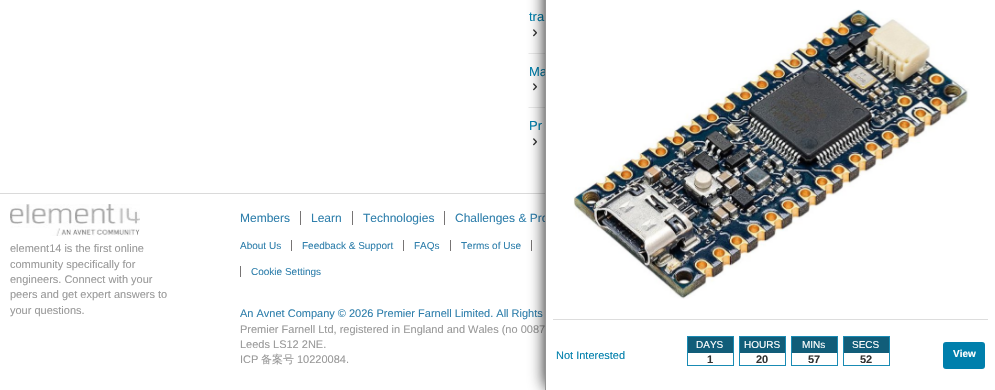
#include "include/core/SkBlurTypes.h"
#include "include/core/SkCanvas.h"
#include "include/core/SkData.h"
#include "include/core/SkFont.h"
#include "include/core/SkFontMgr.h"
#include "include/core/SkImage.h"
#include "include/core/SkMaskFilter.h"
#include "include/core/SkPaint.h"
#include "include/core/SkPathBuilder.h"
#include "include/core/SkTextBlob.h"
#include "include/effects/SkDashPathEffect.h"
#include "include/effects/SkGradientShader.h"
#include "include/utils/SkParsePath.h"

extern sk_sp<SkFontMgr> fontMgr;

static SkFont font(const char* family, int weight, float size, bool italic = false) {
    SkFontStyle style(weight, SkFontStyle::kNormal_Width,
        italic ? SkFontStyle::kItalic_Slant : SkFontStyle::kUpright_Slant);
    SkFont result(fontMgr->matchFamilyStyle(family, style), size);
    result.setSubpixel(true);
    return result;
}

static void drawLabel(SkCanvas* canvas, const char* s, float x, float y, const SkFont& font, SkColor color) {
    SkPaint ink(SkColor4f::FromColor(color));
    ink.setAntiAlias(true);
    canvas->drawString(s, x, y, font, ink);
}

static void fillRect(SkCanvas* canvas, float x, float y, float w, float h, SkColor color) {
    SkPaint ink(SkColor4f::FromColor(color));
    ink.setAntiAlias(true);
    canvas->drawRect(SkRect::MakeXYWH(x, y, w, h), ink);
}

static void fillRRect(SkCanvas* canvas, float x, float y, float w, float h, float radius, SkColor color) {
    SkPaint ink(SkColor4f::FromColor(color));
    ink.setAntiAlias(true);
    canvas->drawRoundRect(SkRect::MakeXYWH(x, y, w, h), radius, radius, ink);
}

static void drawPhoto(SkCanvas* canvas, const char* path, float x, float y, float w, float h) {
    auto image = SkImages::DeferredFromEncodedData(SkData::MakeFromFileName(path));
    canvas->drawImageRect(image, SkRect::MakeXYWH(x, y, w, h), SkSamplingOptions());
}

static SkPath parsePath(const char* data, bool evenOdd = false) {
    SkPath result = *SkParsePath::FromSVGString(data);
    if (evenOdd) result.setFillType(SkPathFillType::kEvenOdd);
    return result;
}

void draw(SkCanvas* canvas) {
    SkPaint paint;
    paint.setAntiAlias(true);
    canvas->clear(0xFFFFFFFF);
    SkFont font1 = font("Liberation Sans", 400, 13);
    drawLabel(canvas, "tra", 529, 21, font1, 0xFF007FAC);
    drawPhoto(canvas, "assets/img1.png", 533, 29, 4, 8);
    paint.setColor(0xFFE9E9E9);
    canvas->drawPath(parsePath("M528 53H955V54H529Z"), paint);
    drawLabel(canvas, "Ma", 529, 76, font1, 0xFF007FAC);
    drawPhoto(canvas, "assets/img1.png", 533, 83, 4, 8);
    canvas->drawPath(parsePath("M528 107H955V108H529Z"), paint);
    drawLabel(canvas, "Pr", 529, 130, font1, 0xFF007FAC);
    drawPhoto(canvas, "assets/img1.png", 533, 138, 4, 8);
    fillRect(canvas, 0, 193, 545, 1, 0xFFDADADA);
    drawPhoto(canvas, "assets/img2.png", 10, 204, 130, 32);
    SkFont font2 = font("Liberation Sans", 400, 11);
    drawLabel(canvas, "element14 is the first online", 10, 252, font2, 0xFF999999);
    drawLabel(canvas, "community specifically for", 10, 268, font2, 0xFF999999);
    drawLabel(canvas, "engineers. Connect with your", 10, 283, font2, 0xFF999999);
    drawLabel(canvas, "peers and get expert answers to", 10, 298, font2, 0xFF999999);
    drawLabel(canvas, "your questions.", 10, 314, font2, 0xFF999999);
    SkFont font3 = font("Liberation Sans", 400, 12);
    drawLabel(canvas, "Members", 240, 222, font3, 0xFF2F7FAC);
    drawLabel(canvas, "Learn", 311, 222, font3, 0xFF2F7FAC);
    fillRect(canvas, 300, 211, 1, 14, 0xFF777474);
    drawLabel(canvas, "Technologies", 363, 222, font3, 0xFF2F7FAC);
    fillRect(canvas, 352, 211, 1, 14, 0xFF777474);
    drawLabel(canvas, "Challenges & Pro", 455, 222, font3, 0xFF2F7FAC);
    fillRect(canvas, 444, 211, 1, 14, 0xFF777474);
    SkFont font4 = font("Liberation Sans", 400, 10);
    drawLabel(canvas, "About Us", 240, 249, font4, 0xFF2F7FAC);
    drawLabel(canvas, "Feedback & Support", 302, 249, font4, 0xFF2F7FAC);
    fillRect(canvas, 291, 240, 1, 11, 0xFF777474);
    drawLabel(canvas, "FAQs", 414, 249, font4, 0xFF2F7FAC);
    fillRect(canvas, 403, 240, 1, 11, 0xFF777474);
    drawLabel(canvas, "Terms of Use", 461, 249, font4, 0xFF2F7FAC);
    fillRect(canvas, 450, 240, 1, 11, 0xFF777474);
    fillRect(canvas, 531, 240, 1, 11, 0xFF777474);
    drawLabel(canvas, "Cookie Settings", 251, 275, font4, 0xFF2F7FAC);
    fillRect(canvas, 240, 266, 1, 11, 0xFF777474);
    drawLabel(canvas, "An Avnet Company © 2026 Premier Farnell Limited. All Rights", 240, 317, font2, 0xFF2F7FAC);
    drawLabel(canvas, "Premier Farnell Ltd, registered in England and Wales (no 0087", 240, 333, font2, 0xFF999999);
    drawLabel(canvas, "Leeds LS12 2NE.", 240, 348, font2, 0xFF999999);
    drawLabel(canvas, "ICP", 240, 363, font2, 0xFF999999);
    SkFont font5 = font("WenQuanYi Zen Hei", 500, 11);
    drawLabel(canvas, "备案号", 261, 363, font5, 0xFF999999);
    drawLabel(canvas, "10220084.", 297, 363, font2, 0xFF999999);
    paint.setColor(0xE6000000);
    paint.setMaskFilter(SkMaskFilter::MakeBlur(kNormal_SkBlurStyle, 8));
    canvas->drawRoundRect(SkRect::MakeXYWH(545, -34, 450, 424), 10, 10, paint);
    paint.setMaskFilter(nullptr);
    fillRect(canvas, 546, 0, 449, 390, 0xFFFFFFFF);
    paint.setColor(0xFF949494);
    canvas->drawPath(parsePath("M555-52H995V390H545V-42C545-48 549-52 555-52ZM555-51H995V390H546V-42C546-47 550-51 555-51Z", true), paint);
    drawPhoto(canvas, "assets/img3.png", 573, 9, 397, 290);
    fillRect(canvas, 553, 319, 435, 1, 0xFFDDDDDD);
    drawLabel(canvas, "Not Interested", 556, 359, font2, 0xFF007FAC);
    paint.setStroke(true);
    paint.setStrokeWidth(1);
    paint.setColor(0xFF198BB4);
    canvas->drawRect(SkRect::MakeXYWH(687.5f, 336.5f, 46, 29), paint);
    fillRect(canvas, 688, 337, 45, 16, 0xFF115D79);
    drawLabel(canvas, "DAYS", 696, 348, font4, 0xFFFFFFFF);
    SkFont font6 = font("Liberation Sans", 700, 11);
    drawLabel(canvas, "1", 707, 363, font6, 0xFF333333);
    canvas->drawRect(SkRect::MakeXYWH(739.5f, 336.5f, 46, 29), paint);
    fillRect(canvas, 740, 337, 45, 16, 0xFF115D79);
    drawLabel(canvas, "HOURS", 744, 348, font4, 0xFFFFFFFF);
    drawLabel(canvas, "20", 756, 363, font6, 0xFF333333);
    canvas->drawRect(SkRect::MakeXYWH(791.5f, 336.5f, 46, 29), paint);
    fillRect(canvas, 792, 337, 45, 16, 0xFF115D79);
    drawLabel(canvas, "MINs", 802, 348, font4, 0xFFFFFFFF);
    drawLabel(canvas, "57", 808, 363, font6, 0xFF333333);
    canvas->drawRect(SkRect::MakeXYWH(843.5f, 336.5f, 46, 29), paint);
    fillRect(canvas, 844, 337, 45, 16, 0xFF115D79);
    drawLabel(canvas, "SECS", 852, 348, font4, 0xFFFFFFFF);
    drawLabel(canvas, "52", 860, 363, font6, 0xFF333333);
    fillRRect(canvas, 943, 342, 42, 27, 3, 0xFF007FAC);
    SkFont font7 = font("Liberation Sans", 700, 10);
    drawLabel(canvas, "View", 953, 357, font7, 0xFFFFFFFF);
}
